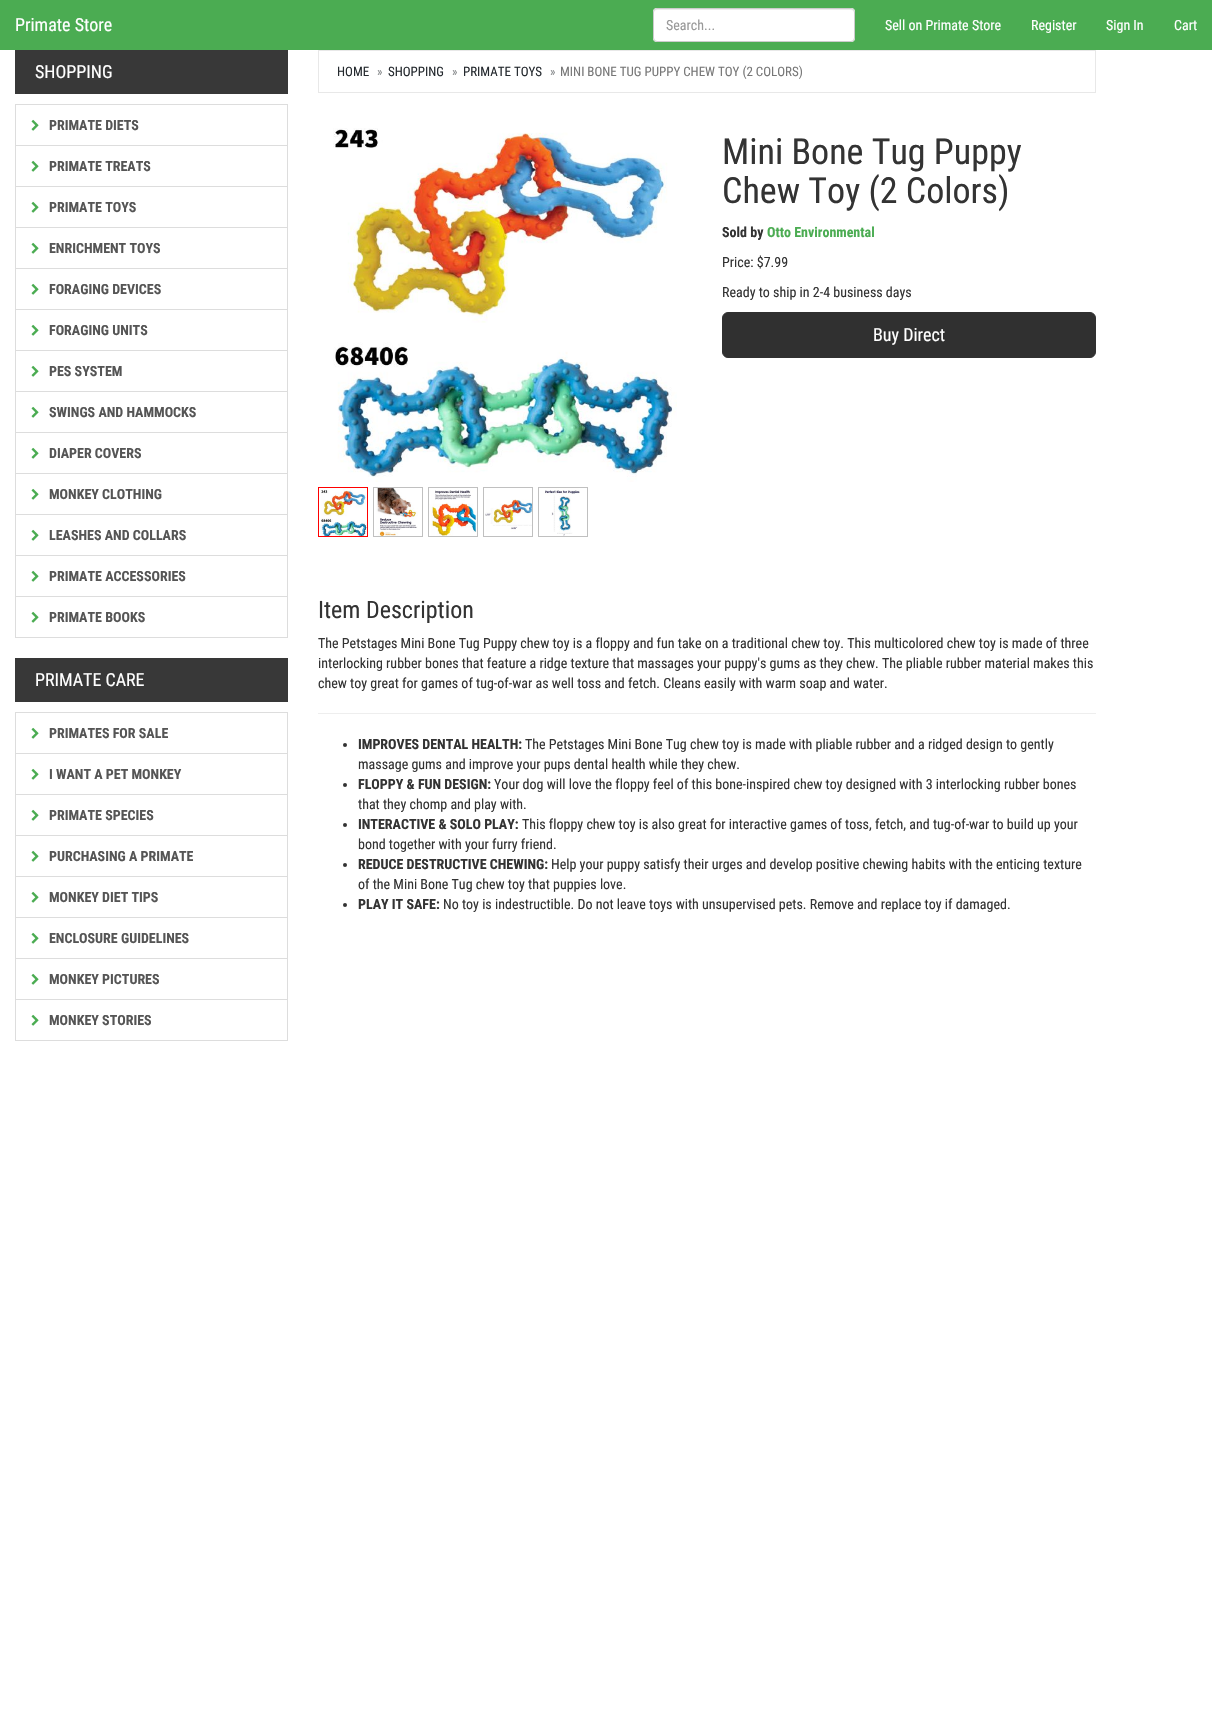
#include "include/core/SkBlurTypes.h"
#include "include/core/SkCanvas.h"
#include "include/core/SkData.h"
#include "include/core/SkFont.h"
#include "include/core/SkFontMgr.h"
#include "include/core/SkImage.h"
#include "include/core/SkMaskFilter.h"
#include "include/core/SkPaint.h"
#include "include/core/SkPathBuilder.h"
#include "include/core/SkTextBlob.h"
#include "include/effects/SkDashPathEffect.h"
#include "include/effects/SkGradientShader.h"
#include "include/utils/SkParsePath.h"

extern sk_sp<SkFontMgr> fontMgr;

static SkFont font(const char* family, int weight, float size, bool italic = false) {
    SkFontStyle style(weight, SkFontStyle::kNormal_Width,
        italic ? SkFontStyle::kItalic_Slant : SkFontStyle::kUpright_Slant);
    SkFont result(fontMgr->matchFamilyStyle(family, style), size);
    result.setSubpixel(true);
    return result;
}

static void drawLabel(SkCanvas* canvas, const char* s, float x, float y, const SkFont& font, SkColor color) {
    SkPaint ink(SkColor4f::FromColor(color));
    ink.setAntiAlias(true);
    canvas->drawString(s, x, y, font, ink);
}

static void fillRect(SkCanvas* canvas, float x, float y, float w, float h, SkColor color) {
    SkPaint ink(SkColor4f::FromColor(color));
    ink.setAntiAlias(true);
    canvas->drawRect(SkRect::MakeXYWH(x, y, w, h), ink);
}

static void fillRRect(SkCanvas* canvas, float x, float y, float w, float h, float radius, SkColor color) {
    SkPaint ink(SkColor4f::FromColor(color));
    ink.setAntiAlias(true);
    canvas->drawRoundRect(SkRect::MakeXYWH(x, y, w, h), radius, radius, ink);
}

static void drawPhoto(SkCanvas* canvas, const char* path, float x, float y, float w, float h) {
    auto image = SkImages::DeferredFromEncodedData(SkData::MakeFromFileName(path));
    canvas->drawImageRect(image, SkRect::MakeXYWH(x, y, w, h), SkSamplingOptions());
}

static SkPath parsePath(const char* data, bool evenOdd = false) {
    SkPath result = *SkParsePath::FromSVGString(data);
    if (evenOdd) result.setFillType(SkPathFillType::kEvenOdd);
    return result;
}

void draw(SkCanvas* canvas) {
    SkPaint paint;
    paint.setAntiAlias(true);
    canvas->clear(0xFFFFFFFF);
    fillRect(canvas, 0, 0, 1212, 50, 0xFF4BAC52);
    SkFont font1 = font("Roboto Condensed", 400, 18);
    drawLabel(canvas, "Primate Store", 15, 31, font1, 0xFFFFFFFF);
    fillRRect(canvas, 653, 8, 202, 34, 4, 0xFFFFFFFF);
    paint.setColor(0xFFECECEC);
    canvas->drawPath(parsePath("M657 10H851C853 10 854 11 854 13C854 11 853 9 851 9H657C655 9 654 11 654 13C654 11 655 10 657 10Z"), paint);
    paint.setStroke(true);
    paint.setStrokeWidth(1);
    paint.setColor(0xFFCCCCCC);
    canvas->drawRoundRect(SkRect::MakeXYWH(653.5f, 8.5f, 201, 33), 3.5f, 3.5f, paint);
    SkFont font2 = font("Roboto Condensed", 400, 14);
    drawLabel(canvas, "Search...", 666, 30, font2, 0xFF999999);
    drawLabel(canvas, "Sell on Primate Store", 885, 30, font2, 0xFFFFFFFF);
    drawLabel(canvas, "Register", 1031, 30, font2, 0xFFFFFFFF);
    drawLabel(canvas, "Sign In", 1106, 30, font2, 0xFFFFFFFF);
    drawLabel(canvas, "Cart", 1174, 30, font2, 0xFFFFFFFF);
    fillRect(canvas, 15, 50, 273, 44, 0xFF383838);
    drawLabel(canvas, "SHOPPING", 35, 78, font1, 0xFFFFFFFF);
    paint.setColor(0xFFDDDDDD);
    canvas->drawRect(SkRect::MakeXYWH(15.5f, 104.5f, 272, 41), paint);
    drawPhoto(canvas, "assets/img1.png", 31, 119, 8, 12);
    SkFont font3 = font("Roboto Condensed", 700, 14);
    drawLabel(canvas, "PRIMATE DIETS", 49, 130, font3, 0xFF555555);
    canvas->drawRect(SkRect::MakeXYWH(15.5f, 145.5f, 272, 41), paint);
    drawPhoto(canvas, "assets/img1.png", 31, 160, 8, 12);
    drawLabel(canvas, "PRIMATE TREATS", 49, 171, font3, 0xFF555555);
    canvas->drawRect(SkRect::MakeXYWH(15.5f, 186.5f, 272, 41), paint);
    drawPhoto(canvas, "assets/img1.png", 31, 201, 8, 12);
    drawLabel(canvas, "PRIMATE TOYS", 49, 212, font3, 0xFF555555);
    canvas->drawRect(SkRect::MakeXYWH(15.5f, 227.5f, 272, 41), paint);
    drawPhoto(canvas, "assets/img1.png", 31, 242, 8, 12);
    drawLabel(canvas, "ENRICHMENT TOYS", 49, 253, font3, 0xFF555555);
    canvas->drawRect(SkRect::MakeXYWH(15.5f, 268.5f, 272, 41), paint);
    drawPhoto(canvas, "assets/img1.png", 31, 283, 8, 12);
    drawLabel(canvas, "FORAGING DEVICES", 49, 294, font3, 0xFF555555);
    canvas->drawRect(SkRect::MakeXYWH(15.5f, 309.5f, 272, 41), paint);
    drawPhoto(canvas, "assets/img1.png", 31, 324, 8, 12);
    drawLabel(canvas, "FORAGING UNITS", 49, 335, font3, 0xFF555555);
    canvas->drawRect(SkRect::MakeXYWH(15.5f, 350.5f, 272, 41), paint);
    drawPhoto(canvas, "assets/img1.png", 31, 365, 8, 12);
    drawLabel(canvas, "PES SYSTEM", 49, 376, font3, 0xFF555555);
    canvas->drawRect(SkRect::MakeXYWH(15.5f, 391.5f, 272, 41), paint);
    drawPhoto(canvas, "assets/img1.png", 31, 406, 8, 12);
    drawLabel(canvas, "SWINGS AND HAMMOCKS", 49, 417, font3, 0xFF555555);
    canvas->drawRect(SkRect::MakeXYWH(15.5f, 432.5f, 272, 41), paint);
    drawPhoto(canvas, "assets/img1.png", 31, 447, 8, 12);
    drawLabel(canvas, "DIAPER COVERS", 49, 458, font3, 0xFF555555);
    canvas->drawRect(SkRect::MakeXYWH(15.5f, 473.5f, 272, 41), paint);
    drawPhoto(canvas, "assets/img1.png", 31, 488, 8, 12);
    drawLabel(canvas, "MONKEY CLOTHING", 49, 499, font3, 0xFF555555);
    canvas->drawRect(SkRect::MakeXYWH(15.5f, 514.5f, 272, 41), paint);
    drawPhoto(canvas, "assets/img1.png", 31, 529, 8, 12);
    drawLabel(canvas, "LEASHES AND COLLARS", 49, 540, font3, 0xFF555555);
    canvas->drawRect(SkRect::MakeXYWH(15.5f, 555.5f, 272, 41), paint);
    drawPhoto(canvas, "assets/img1.png", 31, 570, 8, 12);
    drawLabel(canvas, "PRIMATE ACCESSORIES", 49, 581, font3, 0xFF555555);
    canvas->drawRect(SkRect::MakeXYWH(15.5f, 596.5f, 272, 41), paint);
    drawPhoto(canvas, "assets/img1.png", 31, 611, 8, 12);
    drawLabel(canvas, "PRIMATE BOOKS", 49, 622, font3, 0xFF555555);
    fillRect(canvas, 15, 658, 273, 44, 0xFF383838);
    drawLabel(canvas, "PRIMATE CARE", 35, 686, font1, 0xFFFFFFFF);
    canvas->drawRect(SkRect::MakeXYWH(15.5f, 712.5f, 272, 41), paint);
    drawPhoto(canvas, "assets/img1.png", 31, 727, 8, 12);
    drawLabel(canvas, "PRIMATES FOR SALE", 49, 738, font3, 0xFF555555);
    canvas->drawRect(SkRect::MakeXYWH(15.5f, 753.5f, 272, 41), paint);
    drawPhoto(canvas, "assets/img1.png", 31, 768, 8, 12);
    drawLabel(canvas, "I WANT A PET MONKEY", 49, 779, font3, 0xFF555555);
    canvas->drawRect(SkRect::MakeXYWH(15.5f, 794.5f, 272, 41), paint);
    drawPhoto(canvas, "assets/img1.png", 31, 809, 8, 12);
    drawLabel(canvas, "PRIMATE SPECIES", 49, 820, font3, 0xFF555555);
    canvas->drawRect(SkRect::MakeXYWH(15.5f, 835.5f, 272, 41), paint);
    drawPhoto(canvas, "assets/img1.png", 31, 850, 8, 12);
    drawLabel(canvas, "PURCHASING A PRIMATE", 49, 861, font3, 0xFF555555);
    canvas->drawRect(SkRect::MakeXYWH(15.5f, 876.5f, 272, 41), paint);
    drawPhoto(canvas, "assets/img1.png", 31, 891, 8, 12);
    drawLabel(canvas, "MONKEY DIET TIPS", 49, 902, font3, 0xFF555555);
    canvas->drawRect(SkRect::MakeXYWH(15.5f, 917.5f, 272, 41), paint);
    drawPhoto(canvas, "assets/img1.png", 31, 932, 8, 12);
    drawLabel(canvas, "ENCLOSURE GUIDELINES", 49, 943, font3, 0xFF555555);
    canvas->drawRect(SkRect::MakeXYWH(15.5f, 958.5f, 272, 41), paint);
    drawPhoto(canvas, "assets/img1.png", 31, 973, 8, 12);
    drawLabel(canvas, "MONKEY PICTURES", 49, 984, font3, 0xFF555555);
    canvas->drawRect(SkRect::MakeXYWH(15.5f, 999.5f, 272, 41), paint);
    drawPhoto(canvas, "assets/img1.png", 31, 1014, 8, 12);
    drawLabel(canvas, "MONKEY STORIES", 49, 1025, font3, 0xFF555555);
    paint.setColor(0xFFE8E8E8);
    canvas->drawRect(SkRect::MakeXYWH(318.5f, 50.5f, 777, 42), paint);
    SkFont font4 = font("Roboto Condensed", 400, 13);
    drawLabel(canvas, "HOME", 337, 76, font4, 0xFF252A2F);
    drawLabel(canvas, "»", 377, 76, font4, 0xFF878A8C);
    drawLabel(canvas, "SHOPPING", 388, 76, font4, 0xFF252A2F);
    drawLabel(canvas, "»", 452, 76, font4, 0xFF878A8C);
    drawLabel(canvas, "PRIMATE TOYS", 463, 76, font4, 0xFF252A2F);
    drawLabel(canvas, "»", 550, 76, font4, 0xFF878A8C);
    drawLabel(canvas, "MINI BONE TUG PUPPY CHEW TOY (2 COLORS)", 560, 76, font4, 0xFF777777);
    drawPhoto(canvas, "assets/img2.png", 333, 128, 344, 354);
    paint.setColor(0xFFFF0000);
    canvas->drawRect(SkRect::MakeXYWH(318.5f, 487.5f, 49, 49), paint);
    drawPhoto(canvas, "assets/img3.png", 319, 488, 48, 48);
    paint.setColor(0xFFC0C0C0);
    canvas->drawRect(SkRect::MakeXYWH(373.5f, 487.5f, 49, 49), paint);
    drawPhoto(canvas, "assets/img4.png", 376, 488, 42, 48);
    canvas->drawRect(SkRect::MakeXYWH(428.5f, 487.5f, 49, 49), paint);
    drawPhoto(canvas, "assets/img5.png", 429, 490, 48, 46);
    canvas->drawRect(SkRect::MakeXYWH(483.5f, 487.5f, 49, 49), paint);
    drawPhoto(canvas, "assets/img6.png", 485, 499, 47, 33);
    canvas->drawRect(SkRect::MakeXYWH(538.5f, 487.5f, 49, 49), paint);
    drawPhoto(canvas, "assets/img7.png", 545, 488, 35, 48);
    SkFont font5 = font("Roboto Condensed", 400, 36);
    drawLabel(canvas, "Mini Bone Tug Puppy", 722, 164, font5, 0xFF333333);
    drawLabel(canvas, "Chew Toy (2 Colors)", 722, 203, font5, 0xFF333333);
    drawLabel(canvas, "Sold by", 722, 237, font3, 0xFF333333);
    drawLabel(canvas, "Otto Environmental", 767, 237, font3, 0xFF4BAC52);
    drawLabel(canvas, "Price: $7.99", 722, 267, font2, 0xFF333333);
    drawLabel(canvas, "Ready to ship in 2-4 business days", 722, 297, font2, 0xFF333333);
    paint.setStroke(false);
    paint.setColor(0xFF303030);
    canvas->drawRoundRect(SkRect::MakeXYWH(722.5f, 312.5f, 373, 45), 5.5f, 5.5f, paint);
    paint.setStroke(true);
    canvas->drawRoundRect(SkRect::MakeXYWH(722.5f, 312.5f, 373, 45), 5.5f, 5.5f, paint);
    drawLabel(canvas, "Buy Direct", 873, 341, font1, 0xFFFFFFFF);
    SkFont font6 = font("Roboto Condensed", 400, 24);
    drawLabel(canvas, "Item Description", 318, 618, font6, 0xFF333333);
    drawLabel(canvas, "The Petstages Mini Bone Tug Puppy chew toy is a floppy and fun take on a traditional chew toy. This multicolored chew toy is made of three", 318, 648, font2, 0xFF333333);
    drawLabel(canvas, "interlocking rubber bones that feature a ridge texture that massages your puppy's gums as they chew. The pliable rubber material makes this", 318, 668, font2, 0xFF333333);
    drawLabel(canvas, "chew toy great for games of tug-of-war as well toss and fetch. Cleans easily with warm soap and water.", 318, 688, font2, 0xFF333333);
    fillRect(canvas, 318, 713, 778, 1, 0xFFEEEEEE);
    paint.setStroke(false);
    paint.setColor(0xFF333333);
    canvas->drawCircle(345, 745, 2, paint);
    drawLabel(canvas, "IMPROVES DENTAL HEALTH:", 358, 749, font3, 0xFF333333);
    drawLabel(canvas, "The Petstages Mini Bone Tug chew toy is made with pliable rubber and a ridged design to gently", 525, 749, font2, 0xFF333333);
    drawLabel(canvas, "massage gums and improve your pups dental health while they chew.", 358, 769, font2, 0xFF333333);
    canvas->drawCircle(345, 785, 2, paint);
    drawLabel(canvas, "FLOPPY & FUN DESIGN:", 358, 789, font3, 0xFF333333);
    drawLabel(canvas, "Your dog will love the floppy feel of this bone-inspired chew toy designed with 3 interlocking rubber bones", 494, 789, font2, 0xFF333333);
    drawLabel(canvas, "that they chomp and play with.", 358, 809, font2, 0xFF333333);
    canvas->drawCircle(345, 825, 2, paint);
    drawLabel(canvas, "INTERACTIVE & SOLO PLAY:", 358, 829, font3, 0xFF333333);
    drawLabel(canvas, "This floppy chew toy is also great for interactive games of toss, fetch, and tug-of-war to build up your", 522, 829, font2, 0xFF333333);
    drawLabel(canvas, "bond together with your furry friend.", 358, 849, font2, 0xFF333333);
    canvas->drawCircle(345, 865, 2, paint);
    drawLabel(canvas, "REDUCE DESTRUCTIVE CHEWING:", 358, 869, font3, 0xFF333333);
    drawLabel(canvas, "Help your puppy satisfy their urges and develop positive chewing habits with the enticing texture", 551, 869, font2, 0xFF333333);
    drawLabel(canvas, "of the Mini Bone Tug chew toy that puppies love.", 358, 889, font2, 0xFF333333);
    canvas->drawCircle(345, 905, 2, paint);
    drawLabel(canvas, "PLAY IT SAFE:", 358, 909, font3, 0xFF333333);
    drawLabel(canvas, "No toy is indestructible. Do not leave toys with unsupervised pets. Remove and replace toy if damaged.", 443, 909, font2, 0xFF333333);
}
